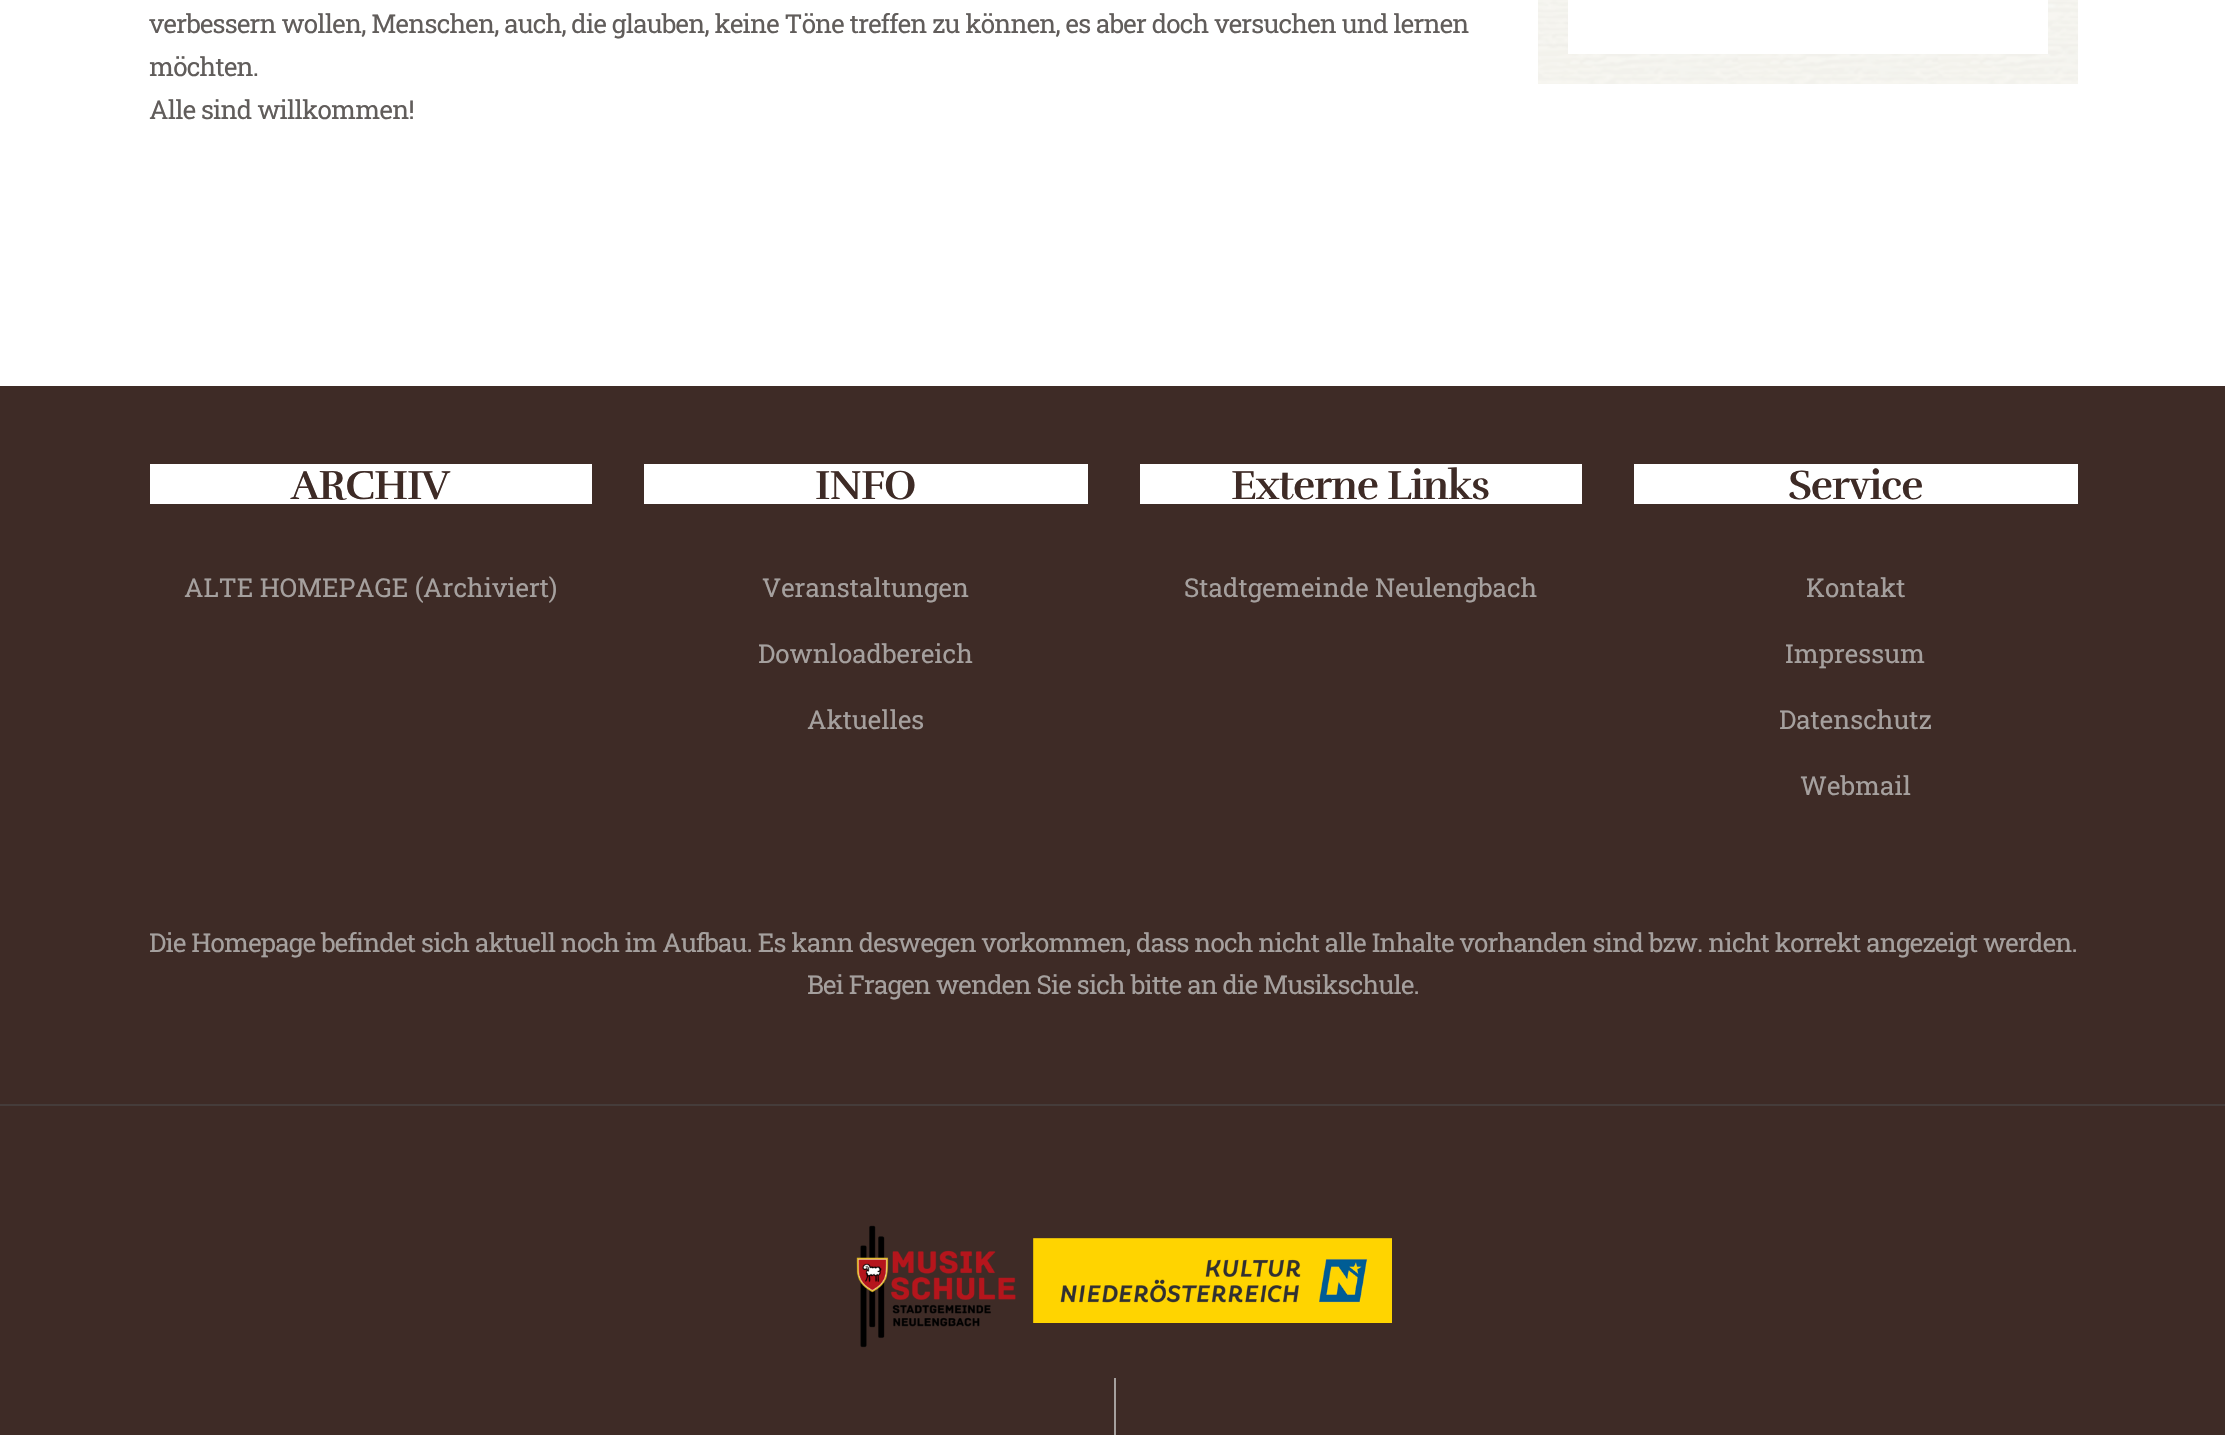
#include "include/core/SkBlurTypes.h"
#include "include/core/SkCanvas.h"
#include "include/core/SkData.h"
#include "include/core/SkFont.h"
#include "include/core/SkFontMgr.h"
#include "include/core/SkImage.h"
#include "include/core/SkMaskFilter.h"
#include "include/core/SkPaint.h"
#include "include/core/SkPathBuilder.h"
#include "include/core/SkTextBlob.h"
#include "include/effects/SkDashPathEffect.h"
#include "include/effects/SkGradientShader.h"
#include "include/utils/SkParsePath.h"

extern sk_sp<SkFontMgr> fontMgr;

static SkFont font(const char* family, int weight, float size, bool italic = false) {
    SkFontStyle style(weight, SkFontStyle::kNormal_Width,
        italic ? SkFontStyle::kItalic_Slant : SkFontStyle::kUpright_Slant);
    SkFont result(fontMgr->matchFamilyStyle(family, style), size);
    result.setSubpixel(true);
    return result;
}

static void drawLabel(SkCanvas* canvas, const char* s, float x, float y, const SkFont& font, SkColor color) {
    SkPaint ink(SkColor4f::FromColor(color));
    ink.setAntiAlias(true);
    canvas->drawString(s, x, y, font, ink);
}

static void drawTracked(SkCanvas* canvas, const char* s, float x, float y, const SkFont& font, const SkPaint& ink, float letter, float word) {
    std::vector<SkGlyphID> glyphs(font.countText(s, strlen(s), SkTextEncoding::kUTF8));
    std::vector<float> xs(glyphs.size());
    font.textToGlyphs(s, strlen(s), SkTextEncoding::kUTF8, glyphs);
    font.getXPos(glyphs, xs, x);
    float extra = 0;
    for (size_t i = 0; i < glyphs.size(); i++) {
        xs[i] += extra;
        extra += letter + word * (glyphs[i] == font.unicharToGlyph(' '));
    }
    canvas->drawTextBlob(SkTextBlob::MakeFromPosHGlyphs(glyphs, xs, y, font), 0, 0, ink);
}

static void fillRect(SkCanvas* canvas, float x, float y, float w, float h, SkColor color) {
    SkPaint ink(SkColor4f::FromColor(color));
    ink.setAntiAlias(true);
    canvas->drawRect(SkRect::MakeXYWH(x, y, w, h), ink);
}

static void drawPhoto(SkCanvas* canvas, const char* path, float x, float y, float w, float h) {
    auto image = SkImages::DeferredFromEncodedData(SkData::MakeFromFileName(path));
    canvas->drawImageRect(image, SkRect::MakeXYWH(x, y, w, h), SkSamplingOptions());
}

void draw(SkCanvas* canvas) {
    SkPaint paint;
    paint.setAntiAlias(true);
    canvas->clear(0xFFFFFFFF);
    SkFont font1 = font("Roboto Slab", 400, 26);
    paint.setColor(0xFF615D5B);
    drawTracked(canvas, "verbessern wollen, Menschen, auch, die glauben, keine Töne treffen zu können, es aber doch versuchen und lernen", 149, 33, font1, paint, -0.8f, 0);
    drawTracked(canvas, "möchten.", 149, 76, font1, paint, -0.8f, 0);
    drawTracked(canvas, "Alle sind willkommen!", 149, 119, font1, paint, -0.8f, 0);
    drawPhoto(canvas, "assets/img1.png", 1538, 0, 540, 84);
    fillRect(canvas, 1568, 0, 480, 54, 0xFFFFFFFF);
    fillRect(canvas, 0, 386, 2225, 1049, 0xFF3E2B26);
    fillRect(canvas, 150, 464, 442, 40, 0xFFFFFFFF);
    SkFont font2 = font("Rufina", 700, 41.5f);
    paint.setColor(0xFF3E2B26);
    drawTracked(canvas, "ARCHIV", 291, 499, font2, paint, -1, 0);
    drawLabel(canvas, "ALTE HOMEPAGE (Archiviert)", 184, 597, font1, 0xFFA5A09E);
    fillRect(canvas, 644, 464, 444, 40, 0xFFFFFFFF);
    drawTracked(canvas, "INFO", 815, 499, font2, paint, -1, 0);
    drawLabel(canvas, "Veranstaltungen", 762, 597, font1, 0xFFA5A09E);
    drawLabel(canvas, "Downloadbereich", 758, 663, font1, 0xFFA5A09E);
    drawLabel(canvas, "Aktuelles", 807, 729, font1, 0xFFA5A09E);
    fillRect(canvas, 1140, 464, 442, 40, 0xFFFFFFFF);
    drawTracked(canvas, "Externe Links", 1231, 499, font2, paint, -1, 0);
    drawLabel(canvas, "Stadtgemeinde Neulengbach", 1184, 597, font1, 0xFFA5A09E);
    fillRect(canvas, 1634, 464, 444, 40, 0xFFFFFFFF);
    drawTracked(canvas, "Service", 1788, 499, font2, paint, -1, 0);
    drawLabel(canvas, "Kontakt", 1806, 597, font1, 0xFFA5A09E);
    drawLabel(canvas, "Impressum", 1785, 663, font1, 0xFFA5A09E);
    drawLabel(canvas, "Datenschutz", 1779, 729, font1, 0xFFA5A09E);
    drawLabel(canvas, "Webmail", 1800, 795, font1, 0xFFA5A09E);
    paint.setColor(0xFFA5A09E);
    drawTracked(canvas, "Die Homepage befindet sich aktuell noch im Aufbau. Es kann deswegen vorkommen, dass noch nicht alle Inhalte vorhanden sind bzw. nicht korrekt angezeigt werden.", 149, 952, font1, paint, -0.8f, 0);
    drawTracked(canvas, "Bei Fragen wenden Sie sich bitte an die Musikschule.", 807, 994, font1, paint, -0.8f, 0);
    fillRect(canvas, 0, 1104, 2225, 2, 0xFF453C3A);
    drawPhoto(canvas, "assets/img2.png", 856, 1225, 536, 123);
    fillRect(canvas, 1114, 1378, 2, 57, 0xFFA5A09E);
}
